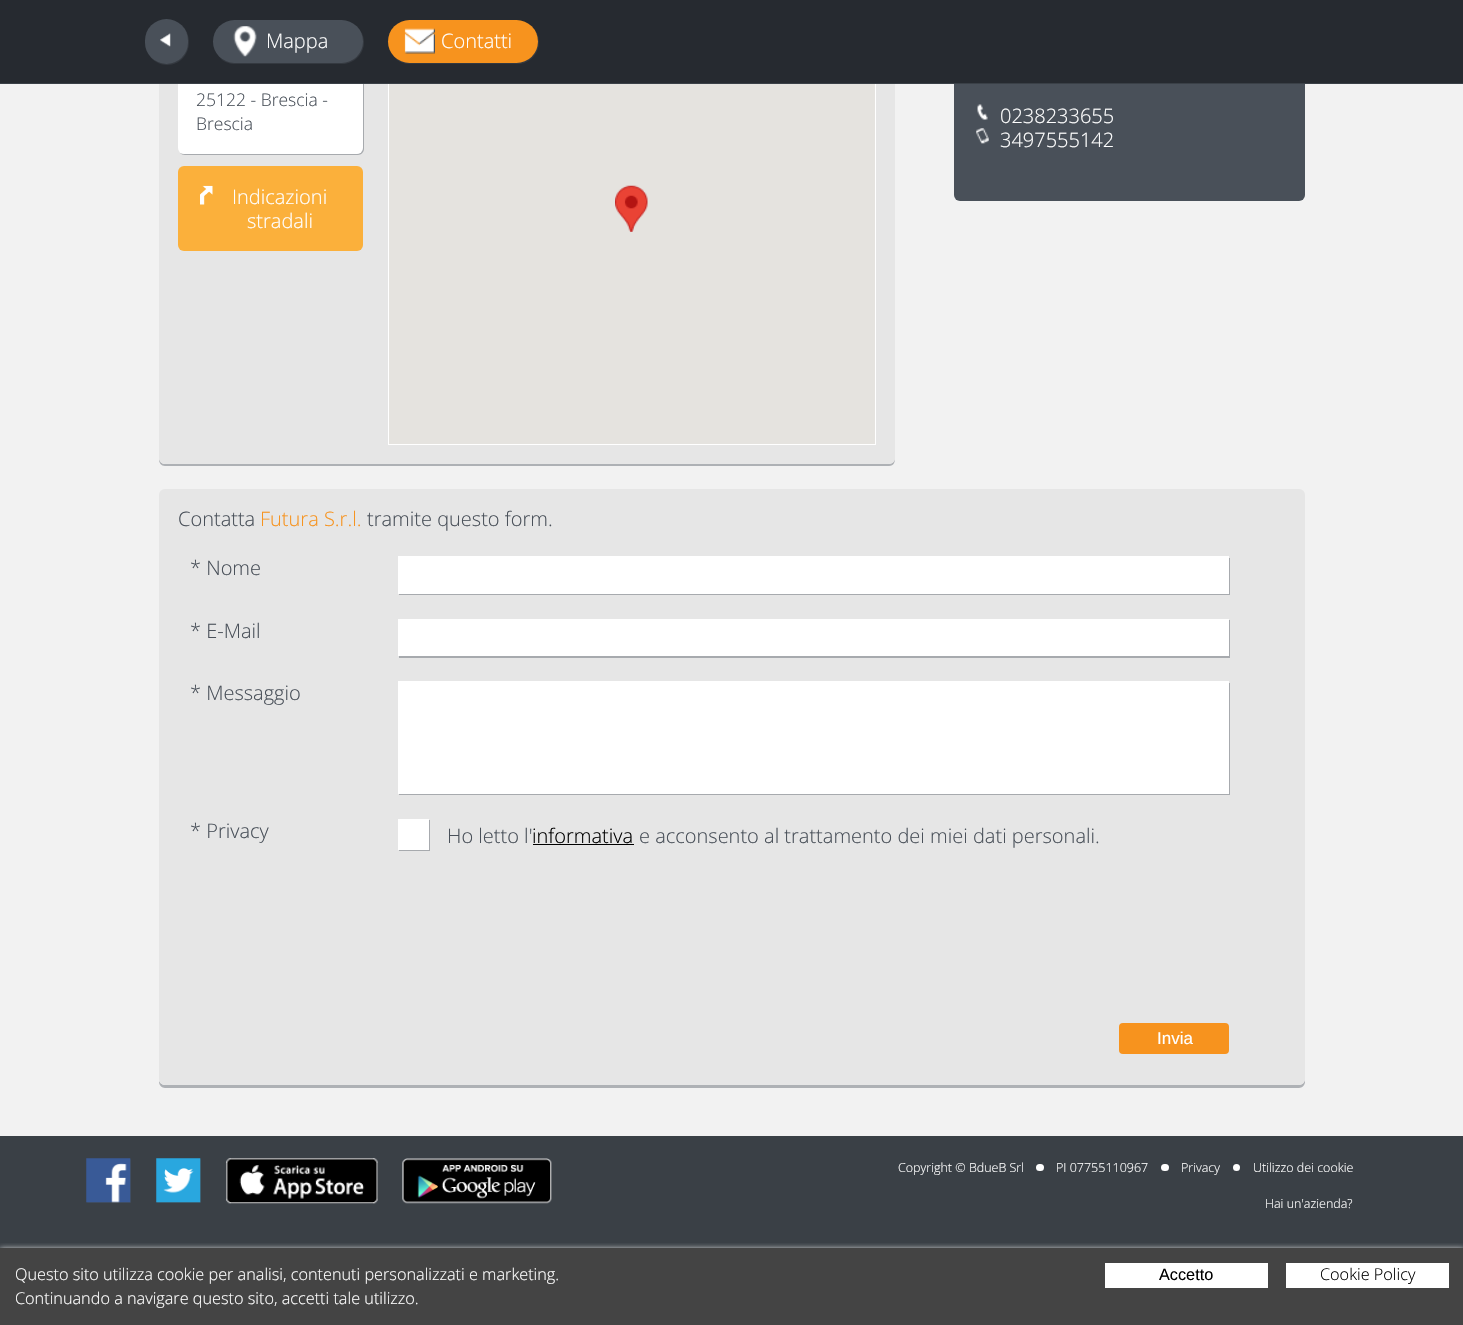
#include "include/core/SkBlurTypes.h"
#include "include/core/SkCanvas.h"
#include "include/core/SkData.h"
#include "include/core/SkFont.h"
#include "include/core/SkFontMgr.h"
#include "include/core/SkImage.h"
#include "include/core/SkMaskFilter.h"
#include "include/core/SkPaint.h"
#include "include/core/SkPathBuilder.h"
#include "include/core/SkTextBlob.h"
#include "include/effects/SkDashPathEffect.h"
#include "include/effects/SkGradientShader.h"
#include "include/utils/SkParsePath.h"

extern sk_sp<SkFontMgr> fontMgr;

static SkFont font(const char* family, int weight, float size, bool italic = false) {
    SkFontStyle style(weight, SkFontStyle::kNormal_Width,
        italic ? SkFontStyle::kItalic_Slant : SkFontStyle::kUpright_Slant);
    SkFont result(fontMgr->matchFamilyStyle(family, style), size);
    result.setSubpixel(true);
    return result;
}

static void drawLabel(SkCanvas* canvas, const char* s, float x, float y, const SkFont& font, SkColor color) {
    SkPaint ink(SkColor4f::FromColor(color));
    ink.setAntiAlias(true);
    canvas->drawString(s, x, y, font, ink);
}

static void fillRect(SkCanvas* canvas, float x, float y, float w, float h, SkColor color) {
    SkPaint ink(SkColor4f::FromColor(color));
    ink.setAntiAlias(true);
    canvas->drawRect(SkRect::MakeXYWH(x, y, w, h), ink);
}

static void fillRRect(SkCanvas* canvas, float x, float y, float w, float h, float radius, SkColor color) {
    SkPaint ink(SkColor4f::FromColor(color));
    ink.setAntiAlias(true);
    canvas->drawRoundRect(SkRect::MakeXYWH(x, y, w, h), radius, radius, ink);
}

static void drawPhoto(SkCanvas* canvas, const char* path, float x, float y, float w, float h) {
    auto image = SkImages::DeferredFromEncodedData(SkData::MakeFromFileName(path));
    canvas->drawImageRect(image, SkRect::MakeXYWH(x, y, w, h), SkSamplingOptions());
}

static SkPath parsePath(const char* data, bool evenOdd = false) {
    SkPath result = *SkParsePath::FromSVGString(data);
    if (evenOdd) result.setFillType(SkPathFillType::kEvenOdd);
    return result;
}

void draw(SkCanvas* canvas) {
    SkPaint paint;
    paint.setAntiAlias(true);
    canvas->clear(0xFFF2F2F2);
    paint.setColor(0xFFAEB1B5);
    canvas->drawPath(parsePath("M159 459C159 463 161 466 165 466H889C894 466 895 462 895 458C895 461 892 464 889 464H165C162 464 160 462 159 459Z"), paint);
    fillRRect(canvas, 159, 1, 736, 463, 6, 0xFFE6E6E6);
    paint.setColor(0xFFA7AAAE);
    canvas->drawPath(parsePath("M180 153C181 154 183 155 185 155H358C361 155 364 152 364 149V27C364 24 362 22 360 21C362 23 362 24 362 26V148C362 151 360 154 356 154H184C182 154 181 153 180 153Z"), paint);
    fillRRect(canvas, 178, 20, 185, 134, 6, 0xFFFFFFFF);
    paint.setStroke(true);
    paint.setStrokeWidth(1);
    paint.setColor(0xFFFFFFFF);
    canvas->drawRect(SkRect::MakeXYWH(388.5f, 20.5f, 487, 424), paint);
    fillRRect(canvas, 954, 1, 351, 200, 6, 0xFF495059);
    fillRect(canvas, 0, 0, 1463, 83, 0xFF262A30);
    fillRect(canvas, 0, 83, 1463, 1, 0xFF3A4047);
    paint.setStroke(false);
    paint.setColor(0xFF343940);
    canvas->drawPath(parsePath("M151 57.5C159 67 174 67.5 182.5 58.5C191.5 49.5 191 33.5 181.5 25C188.5 32.5 189.5 46 184 54.5C176.5 65.5 160.5 67 151 57.5Z"), paint);
    fillRRect(canvas, 145, 19, 43, 45, 21.5f, 0xFF495059);
    drawPhoto(canvas, "assets/img1.png", 160, 33, 11, 14);
    canvas->drawPath(parsePath("M220 58C224 62 230 64 236 64H342C354 64 364 54 364 42C364 35 360 29 355 25C359 29 362 35 362 41C362 53 353 62 341 62H234C229 62 224 61 220 58Z"), paint);
    fillRRect(canvas, 213, 20, 150, 43, 21.5f, 0xFF495059);
    drawPhoto(canvas, "assets/img2.png", 233, 26, 24, 31);
    SkFont font1 = font("Open Sans", 300, 20);
    drawLabel(canvas, "Mappa", 266, 48, font1, 0xFFFFFFFF);
    canvas->drawPath(parsePath("M395 58C399 62 405 64 410 64H518C529 64 539 54 539 42C539 35 535 29 530 25C534 29 538 35 538 41C538 53 528 62 516 62H409C404 62 399 61 395 58Z"), paint);
    fillRRect(canvas, 388, 20, 150, 43, 21.5f, 0xFFF7931E);
    drawPhoto(canvas, "assets/img3.png", 404, 28, 31, 26);
    drawLabel(canvas, "Contatti", 441, 48, font1, 0xFFFFFFFF);
    SkFont font2 = font("Open Sans", 300, 17.5f);
    drawLabel(canvas, "25122 - Brescia -", 196, 106, font2, 0xFF495059);
    drawLabel(canvas, "Brescia", 196, 130, font2, 0xFF495059);
    fillRRect(canvas, 178, 166, 185, 85, 6, 0xFFFBB03B);
    drawPhoto(canvas, "assets/img4.png", 200, 185, 13, 20);
    drawLabel(canvas, "Indicazioni", 232, 204, font1, 0xFFFFFFFF);
    drawLabel(canvas, "stradali", 247, 228, font1, 0xFFFFFFFF);
    fillRect(canvas, 389, 84, 486, 360, 0xFFE5E3DF);
    drawPhoto(canvas, "assets/img5.png", 615, 185, 33, 47);
    paint.setColor(0xFFAEB1B5);
    canvas->drawPath(parsePath("M159 1081V1082C159 1085 162 1088 165 1088H1299C1302 1088 1305 1085 1305 1082V1079C1305 1082 1302 1085 1299 1085H165C162 1085 160 1083 159 1081Z"), paint);
    fillRRect(canvas, 159, 489, 1146, 596, 6, 0xFFE6E6E6);
    drawLabel(canvas, "Contatta", 178, 526, font1, 0xFF495059);
    drawLabel(canvas, "Futura S.r.l.", 260, 526, font1, 0xFFF7931E);
    drawLabel(canvas, "tramite questo form.", 367, 526, font1, 0xFF495059);
    drawLabel(canvas, "* Nome", 190, 575, font1, 0xFF495059);
    paint.setColor(0xFFA7AAAE);
    canvas->drawPath(parsePath("M399 594V595H1230V558H1229V594Z"), paint);
    fillRect(canvas, 398, 556, 831, 38, 0xFFFFFFFF);
    drawLabel(canvas, "* E-Mail", 190, 638, font1, 0xFF495059);
    canvas->drawPath(parsePath("M399 656V658H1230V620H1229V656Z"), paint);
    fillRect(canvas, 398, 619, 831, 37, 0xFFFFFFFF);
    drawLabel(canvas, "* Messaggio", 190, 700, font1, 0xFF495059);
    canvas->drawPath(parsePath("M399 794V795H1230V683H1229V794Z"), paint);
    fillRect(canvas, 398, 681, 831, 113, 0xFFFFFFFF);
    drawLabel(canvas, "* Privacy", 190, 838, font1, 0xFF495059);
    canvas->drawPath(parsePath("M399 850V851H430V820H429V850Z"), paint);
    fillRect(canvas, 398, 819, 31, 31, 0xFFFFFFFF);
    drawLabel(canvas, "Ho letto l'", 447, 843, font1, 0xFF495059);
    drawLabel(canvas, "informativa", 532, 843, font1, 0xFF000000);
    fillRect(canvas, 533, 844, 101, 1, 0xFF000000);
    drawLabel(canvas, "e acconsento al trattamento dei miei dati personali.", 639, 843, font1, 0xFF495059);
    fillRRect(canvas, 1119, 1023, 110, 31, 4, 0xFFF7931E);
    SkFont font3 = font("Liberation Sans", 400, 17);
    drawLabel(canvas, "Invia", 1157, 1044, font3, 0xFFFFFFFF);
    drawPhoto(canvas, "assets/img6.png", 977, 104, 11, 16);
    drawLabel(canvas, "0238233655", 1000, 123, font1, 0xFFFFFFFF);
    drawPhoto(canvas, "assets/img7.png", 976, 128, 13, 16);
    drawLabel(canvas, "3497555142", 1000, 147, font1, 0xFFFFFFFF);
    fillRect(canvas, 0, 1136, 1463, 112, 0xFF3A4046);
    drawPhoto(canvas, "assets/img8.png", 86, 1158, 45, 45);
    drawPhoto(canvas, "assets/img9.png", 156, 1158, 45, 45);
    drawPhoto(canvas, "assets/img10.png", 226, 1158, 152, 46);
    drawPhoto(canvas, "assets/img11.png", 402, 1158, 150, 46);
    SkFont font4 = font("Open Sans", 300, 12.5f);
    drawLabel(canvas, "Copyright © BdueB Srl", 898, 1172, font4, 0xFFFFFFFF);
    fillRRect(canvas, 1036, 1164, 8, 7, 3.5f, 0xFFFFFFFF);
    drawLabel(canvas, "PI 07755110967", 1056, 1172, font4, 0xFFFFFFFF);
    fillRRect(canvas, 1161, 1164, 8, 7, 3.5f, 0xFFFFFFFF);
    drawLabel(canvas, "Privacy", 1181, 1172, font4, 0xFFFFFFFF);
    paint.setColor(0xFFFFFFFF);
    canvas->drawCircle(1236.5f, 1167.5f, 3.5f, paint);
    drawLabel(canvas, "Utilizzo dei cookie", 1253, 1172, font4, 0xFFFFFFFF);
    drawLabel(canvas, "Hai un'azienda?", 1265, 1208, font4, 0xFFFFFFFF);
    fillRect(canvas, 0, 1248, 1463, 77, 0xFF444444);
    canvas->save();
    canvas->clipRect(SkRect::MakeXYWH(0, 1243, 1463, 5));
    paint.setMaskFilter(SkMaskFilter::MakeBlur(kNormal_SkBlurStyle, 3));
    canvas->drawRect(SkRect::MakeXYWH(0, 1249, 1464, 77), paint);
    paint.setMaskFilter(nullptr);
    canvas->restore();
    SkFont font5 = font("Open Sans", 300, 16.25f);
    drawLabel(canvas, "Questo sito utilizza cookie per analisi, contenuti personalizzati e marketing.", 15, 1280, font5, 0xFFFFFFFF);
    drawLabel(canvas, "Continuando a navigare questo sito, accetti tale utilizzo.", 15, 1304, font5, 0xFFFFFFFF);
    fillRect(canvas, 1105, 1263, 163, 25, 0xFFFFFFFF);
    SkFont font6 = font("Liberation Sans", 400, 16.25f);
    drawLabel(canvas, "Accetto", 1159, 1280, font6, 0xFF000000);
    fillRect(canvas, 1286, 1263, 163, 25, 0xFFFFFFFF);
    drawLabel(canvas, "Cookie Policy", 1320, 1280, font5, 0xFF000000);
}
